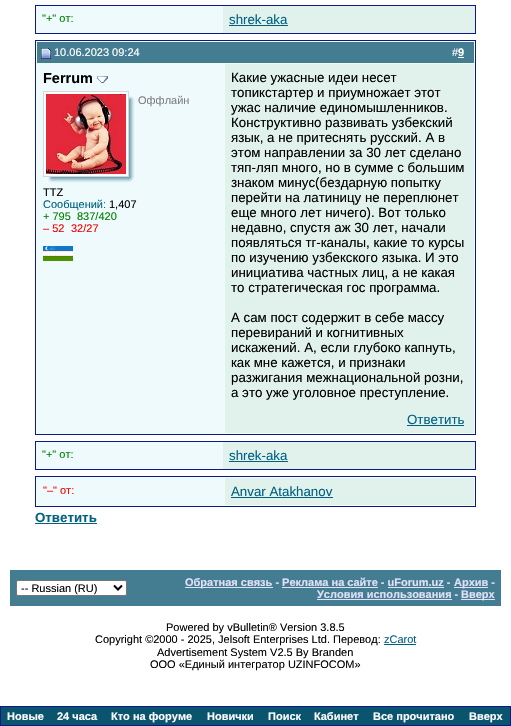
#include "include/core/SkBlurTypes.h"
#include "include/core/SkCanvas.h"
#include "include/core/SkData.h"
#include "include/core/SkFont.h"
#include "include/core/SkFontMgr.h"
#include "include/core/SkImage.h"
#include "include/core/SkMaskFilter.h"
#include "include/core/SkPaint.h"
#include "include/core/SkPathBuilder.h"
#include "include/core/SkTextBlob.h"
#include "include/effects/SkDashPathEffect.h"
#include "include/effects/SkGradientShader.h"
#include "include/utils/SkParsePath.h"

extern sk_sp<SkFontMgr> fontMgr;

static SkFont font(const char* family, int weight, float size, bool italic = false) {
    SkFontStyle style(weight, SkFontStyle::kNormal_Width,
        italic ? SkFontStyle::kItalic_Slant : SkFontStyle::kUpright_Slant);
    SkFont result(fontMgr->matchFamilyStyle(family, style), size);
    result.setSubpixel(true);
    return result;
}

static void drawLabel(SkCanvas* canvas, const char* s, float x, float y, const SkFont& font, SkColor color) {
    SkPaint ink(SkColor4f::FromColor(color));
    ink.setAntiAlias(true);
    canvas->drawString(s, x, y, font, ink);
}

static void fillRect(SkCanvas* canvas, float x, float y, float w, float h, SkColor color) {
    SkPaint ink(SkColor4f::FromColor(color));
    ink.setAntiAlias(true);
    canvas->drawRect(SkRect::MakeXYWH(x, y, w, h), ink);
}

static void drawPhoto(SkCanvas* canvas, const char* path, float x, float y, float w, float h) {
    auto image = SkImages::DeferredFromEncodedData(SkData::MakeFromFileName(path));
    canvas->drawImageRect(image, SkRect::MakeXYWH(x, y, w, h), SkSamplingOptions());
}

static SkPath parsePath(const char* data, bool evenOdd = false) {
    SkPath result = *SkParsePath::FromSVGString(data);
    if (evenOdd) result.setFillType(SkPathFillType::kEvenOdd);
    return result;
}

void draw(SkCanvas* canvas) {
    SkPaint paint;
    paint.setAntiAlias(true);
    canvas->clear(0xFFFFFFFF);
    paint.setStroke(true);
    paint.setStrokeWidth(1);
    paint.setColor(0xFF0B198C);
    canvas->drawRect(SkRect::MakeXYWH(35.5f, 5.5f, 440, 28), paint);
    fillRect(canvas, 36, 6, 187, 27, 0xFFEFFAFD);
    SkFont font1 = font("Liberation Sans", 400, 11);
    drawLabel(canvas, "\"+\" от:", 42, 22, font1, 0xFF008000);
    fillRect(canvas, 223, 6, 252, 27, 0xFFE1F2ED);
    SkFont font2 = font("Liberation Sans", 400, 13.3f);
    drawLabel(canvas, "shrek-aka", 229, 24, font2, 0xFF006182);
    fillRect(canvas, 229, 25, 59, 1, 0xFF006182);
    canvas->drawRect(SkRect::MakeXYWH(35.5f, 40.5f, 440, 394), paint);
    fillRect(canvas, 37, 42, 437, 21, 0xFF447D92);
    fillRect(canvas, 36, 41, 439, 1, 0xFFF0FFED);
    fillRect(canvas, 36, 63, 189, 1, 0xFFF0FFED);
    fillRect(canvas, 36, 41, 1, 365, 0xFFF0FFED);
    drawPhoto(canvas, "assets/img1.png", 41, 48, 10, 11);
    drawLabel(canvas, "10.06.2023 09:24", 54, 56, font1, 0xFFFFFFFF);
    fillRect(canvas, 474, 41, 1, 393, 0xFFF0FFED);
    fillRect(canvas, 225, 63, 250, 1, 0xFFF0FFED);
    drawLabel(canvas, "#", 452, 56, font1, 0xFFFFFFFF);
    SkFont font3 = font("Liberation Sans", 700, 11);
    drawLabel(canvas, "9", 458, 56, font3, 0xFFFFFFFF);
    fillRect(canvas, 458, 57, 6, 1, 0xFFFFFFFF);
    fillRect(canvas, 37, 64, 187, 369, 0xFFEFFAFD);
    fillRect(canvas, 224, 64, 1, 370, 0xFFF0FFED);
    SkFont font4 = font("Liberation Sans", 700, 14.5f);
    drawLabel(canvas, "Ferrum", 43, 83, font4, 0xFF000000);
    drawPhoto(canvas, "assets/img2.png", 97, 76, 11, 7);
    drawPhoto(canvas, "assets/img3.png", 46, 94, 89, 89);
    drawPhoto(canvas, "assets/img4.png", 43, 91, 92, 92);
    paint.setStroke(false);
    paint.setColor(0xFFFFFFFF);
    canvas->drawRect(SkRect::MakeXYWH(43.5f, 91.5f, 85, 85), paint);
    paint.setStroke(true);
    paint.setColor(0xFFD6D6D6);
    canvas->drawRect(SkRect::MakeXYWH(43.5f, 91.5f, 85, 85), paint);
    drawPhoto(canvas, "assets/img5.png", 46, 94, 80, 80);
    drawLabel(canvas, "Оффлайн", 138, 104, font1, 0xFF808080);
    drawLabel(canvas, "TTZ", 43, 196, font1, 0xFF000000);
    drawLabel(canvas, "Сообщений:", 43, 208, font1, 0xFF006182);
    drawLabel(canvas, "1,407", 109, 208, font1, 0xFF000000);
    drawLabel(canvas, "+ 795", 43, 220, font1, 0xFF008000);
    drawLabel(canvas, "837/420", 77, 220, font1, 0xFF008000);
    drawLabel(canvas, "– 52", 43, 232, font1, 0xFFFF0000);
    drawLabel(canvas, "32/27", 71, 232, font1, 0xFFFF0000);
    drawPhoto(canvas, "assets/img6.png", 43, 246, 30, 15);
    fillRect(canvas, 225, 64, 249, 369, 0xFFE1F2ED);
    drawLabel(canvas, "Какие ужасные идеи несет", 231, 82, font2, 0xFF000000);
    drawLabel(canvas, "топикстартер и приумножает этот", 231, 97, font2, 0xFF000000);
    drawLabel(canvas, "ужас наличие единомышленников.", 231, 112, font2, 0xFF000000);
    drawLabel(canvas, "Конструктивно развивать узбекский", 231, 127, font2, 0xFF000000);
    drawLabel(canvas, "язык, а не притеснять русский. А в", 231, 142, font2, 0xFF000000);
    drawLabel(canvas, "этом направлении за 30 лет сделано", 231, 157, font2, 0xFF000000);
    drawLabel(canvas, "тяп-ляп много, но в сумме с большим", 231, 172, font2, 0xFF000000);
    drawLabel(canvas, "знаком минус(бездарную попытку", 231, 187, font2, 0xFF000000);
    drawLabel(canvas, "перейти на латиницу не переплюнет", 231, 202, font2, 0xFF000000);
    drawLabel(canvas, "еще много лет ничего). Вот только", 231, 217, font2, 0xFF000000);
    drawLabel(canvas, "недавно, спустя аж 30 лет, начали", 231, 232, font2, 0xFF000000);
    drawLabel(canvas, "появляться тг-каналы, какие то курсы", 231, 247, font2, 0xFF000000);
    drawLabel(canvas, "по изучению узбекского языка. И это", 231, 262, font2, 0xFF000000);
    drawLabel(canvas, "инициатива частных лиц, а не какая", 231, 277, font2, 0xFF000000);
    drawLabel(canvas, "то стратегическая гос программа.", 231, 292, font2, 0xFF000000);
    drawLabel(canvas, "А сам пост содержит в себе массу", 231, 322, font2, 0xFF000000);
    drawLabel(canvas, "перевираний и когнитивных", 231, 337, font2, 0xFF000000);
    drawLabel(canvas, "искажений. А, если глубоко капнуть,", 231, 352, font2, 0xFF000000);
    drawLabel(canvas, "как мне кажется, и признаки", 231, 367, font2, 0xFF000000);
    drawLabel(canvas, "разжигания межнациональной розни,", 231, 382, font2, 0xFF000000);
    drawLabel(canvas, "а это уже уголовное преступление.", 231, 397, font2, 0xFF000000);
    fillRect(canvas, 36, 433, 439, 1, 0xFFF0FFED);
    fillRect(canvas, 36, 406, 1, 28, 0xFFF0FFED);
    drawLabel(canvas, "Ответить", 407, 424, font2, 0xFF006182);
    fillRect(canvas, 407, 425, 57, 1, 0xFF006182);
    paint.setColor(0xFF0B198C);
    canvas->drawRect(SkRect::MakeXYWH(35.5f, 441.5f, 440, 28), paint);
    fillRect(canvas, 36, 442, 187, 27, 0xFFEFFAFD);
    drawLabel(canvas, "\"+\" от:", 42, 458, font1, 0xFF008000);
    fillRect(canvas, 223, 442, 252, 27, 0xFFE1F2ED);
    drawLabel(canvas, "shrek-aka", 229, 460, font2, 0xFF006182);
    fillRect(canvas, 229, 461, 59, 1, 0xFF006182);
    paint.setStroke(false);
    paint.setColor(0xFFF0FFED);
    canvas->drawRect(SkRect::MakeXYWH(35.5f, 476.5f, 440, 30), paint);
    paint.setStroke(true);
    paint.setColor(0xFF0B198C);
    canvas->drawRect(SkRect::MakeXYWH(35.5f, 476.5f, 440, 30), paint);
    fillRect(canvas, 37, 478, 187, 27, 0xFFEFFAFD);
    drawLabel(canvas, "\"–\" от:", 43, 494, font1, 0xFFFF0000);
    fillRect(canvas, 225, 478, 249, 27, 0xFFE1F2ED);
    drawLabel(canvas, "Anvar Atakhanov", 231, 496, font2, 0xFF006182);
    fillRect(canvas, 231, 497, 102, 1, 0xFF006182);
    SkFont font5 = font("Liberation Sans", 700, 13.3f);
    drawLabel(canvas, "Ответить", 35, 522, font5, 0xFF006182);
    fillRect(canvas, 35, 523, 62, 1, 0xFF006182);
    fillRect(canvas, 10, 570, 491, 36, 0xFF447D92);
    paint.setStroke(false);
    paint.setColor(0xFFFFFFFF);
    canvas->drawRoundRect(SkRect::MakeXYWH(16.5f, 580.5f, 110, 15), 1.5f, 1.5f, paint);
    paint.setStroke(true);
    paint.setColor(0xFF767676);
    canvas->drawRoundRect(SkRect::MakeXYWH(16.5f, 580.5f, 110, 15), 1.5f, 1.5f, paint);
    paint.setStrokeWidth(2);
    paint.setColor(0xFF000000);
    canvas->drawPath(parsePath("M114 585.5L118 589.5L122 585.5"), paint);
    drawLabel(canvas, "-- Russian (RU)", 21, 592, font1, 0xFF000000);
    fillRect(canvas, 185, 587, 88, 1, 0xFFE0E0F6);
    drawLabel(canvas, "Обратная связь - Реклама на сайте - uForum.uz -", 185, 586, font3, 0xFFE0E0F6);
    fillRect(canvas, 282, 587, 96, 1, 0xFFE0E0F6);
    fillRect(canvas, 388, 587, 56, 1, 0xFFE0E0F6);
    fillRect(canvas, 454, 587, 34, 1, 0xFFE0E0F6);
    drawLabel(canvas, "Архив -", 454, 586, font3, 0xFFE0E0F6);
    drawLabel(canvas, "Условия использования -", 317, 598, font3, 0xFFE0E0F6);
    fillRect(canvas, 317, 599, 135, 1, 0xFFE0E0F6);
    fillRect(canvas, 461, 599, 34, 1, 0xFFE0E0F6);
    drawLabel(canvas, "Вверх", 461, 598, font3, 0xFFE0E0F6);
    drawLabel(canvas, "Powered by vBulletin® Version 3.8.5", 166, 631, font1, 0xFF000000);
    drawLabel(canvas, "Copyright ©2000 - 2025, Jelsoft Enterprises Ltd. Перевод:", 95, 643, font1, 0xFF000000);
    drawLabel(canvas, "zCarot", 384, 643, font1, 0xFF006182);
    fillRect(canvas, 384, 644, 32, 1, 0xFF006182);
    drawLabel(canvas, "Advertisement System V2.5 By Branden", 157, 656, font1, 0xFF000000);
    drawLabel(canvas, "OOO «Единый интегратор UZINFOCOM»", 150, 668, font1, 0xFF000000);
    paint.setStrokeWidth(1);
    paint.setColor(0xFF0B198C);
    canvas->drawRect(SkRect::MakeXYWH(0.5f, 706.5f, 510, 19), paint);
    fillRect(canvas, 1, 707, 509, 18, 0xFF0B546D);
    drawLabel(canvas, "Новые", 7, 720, font3, 0xFFFFFFFF);
    drawLabel(canvas, "24 часа", 57, 720, font3, 0xFFFFFFFF);
    drawLabel(canvas, "Кто на форуме", 111, 720, font3, 0xFFFFFFFF);
    drawLabel(canvas, "Новички", 207, 720, font3, 0xFFFFFFFF);
    drawLabel(canvas, "Поиск", 268, 720, font3, 0xFFFFFFFF);
    drawLabel(canvas, "Кабинет", 314, 720, font3, 0xFFFFFFFF);
    drawLabel(canvas, "Все прочитано", 373, 720, font3, 0xFFFFFFFF);
    drawLabel(canvas, "Вверх", 469, 720, font3, 0xFFFFFFFF);
}
